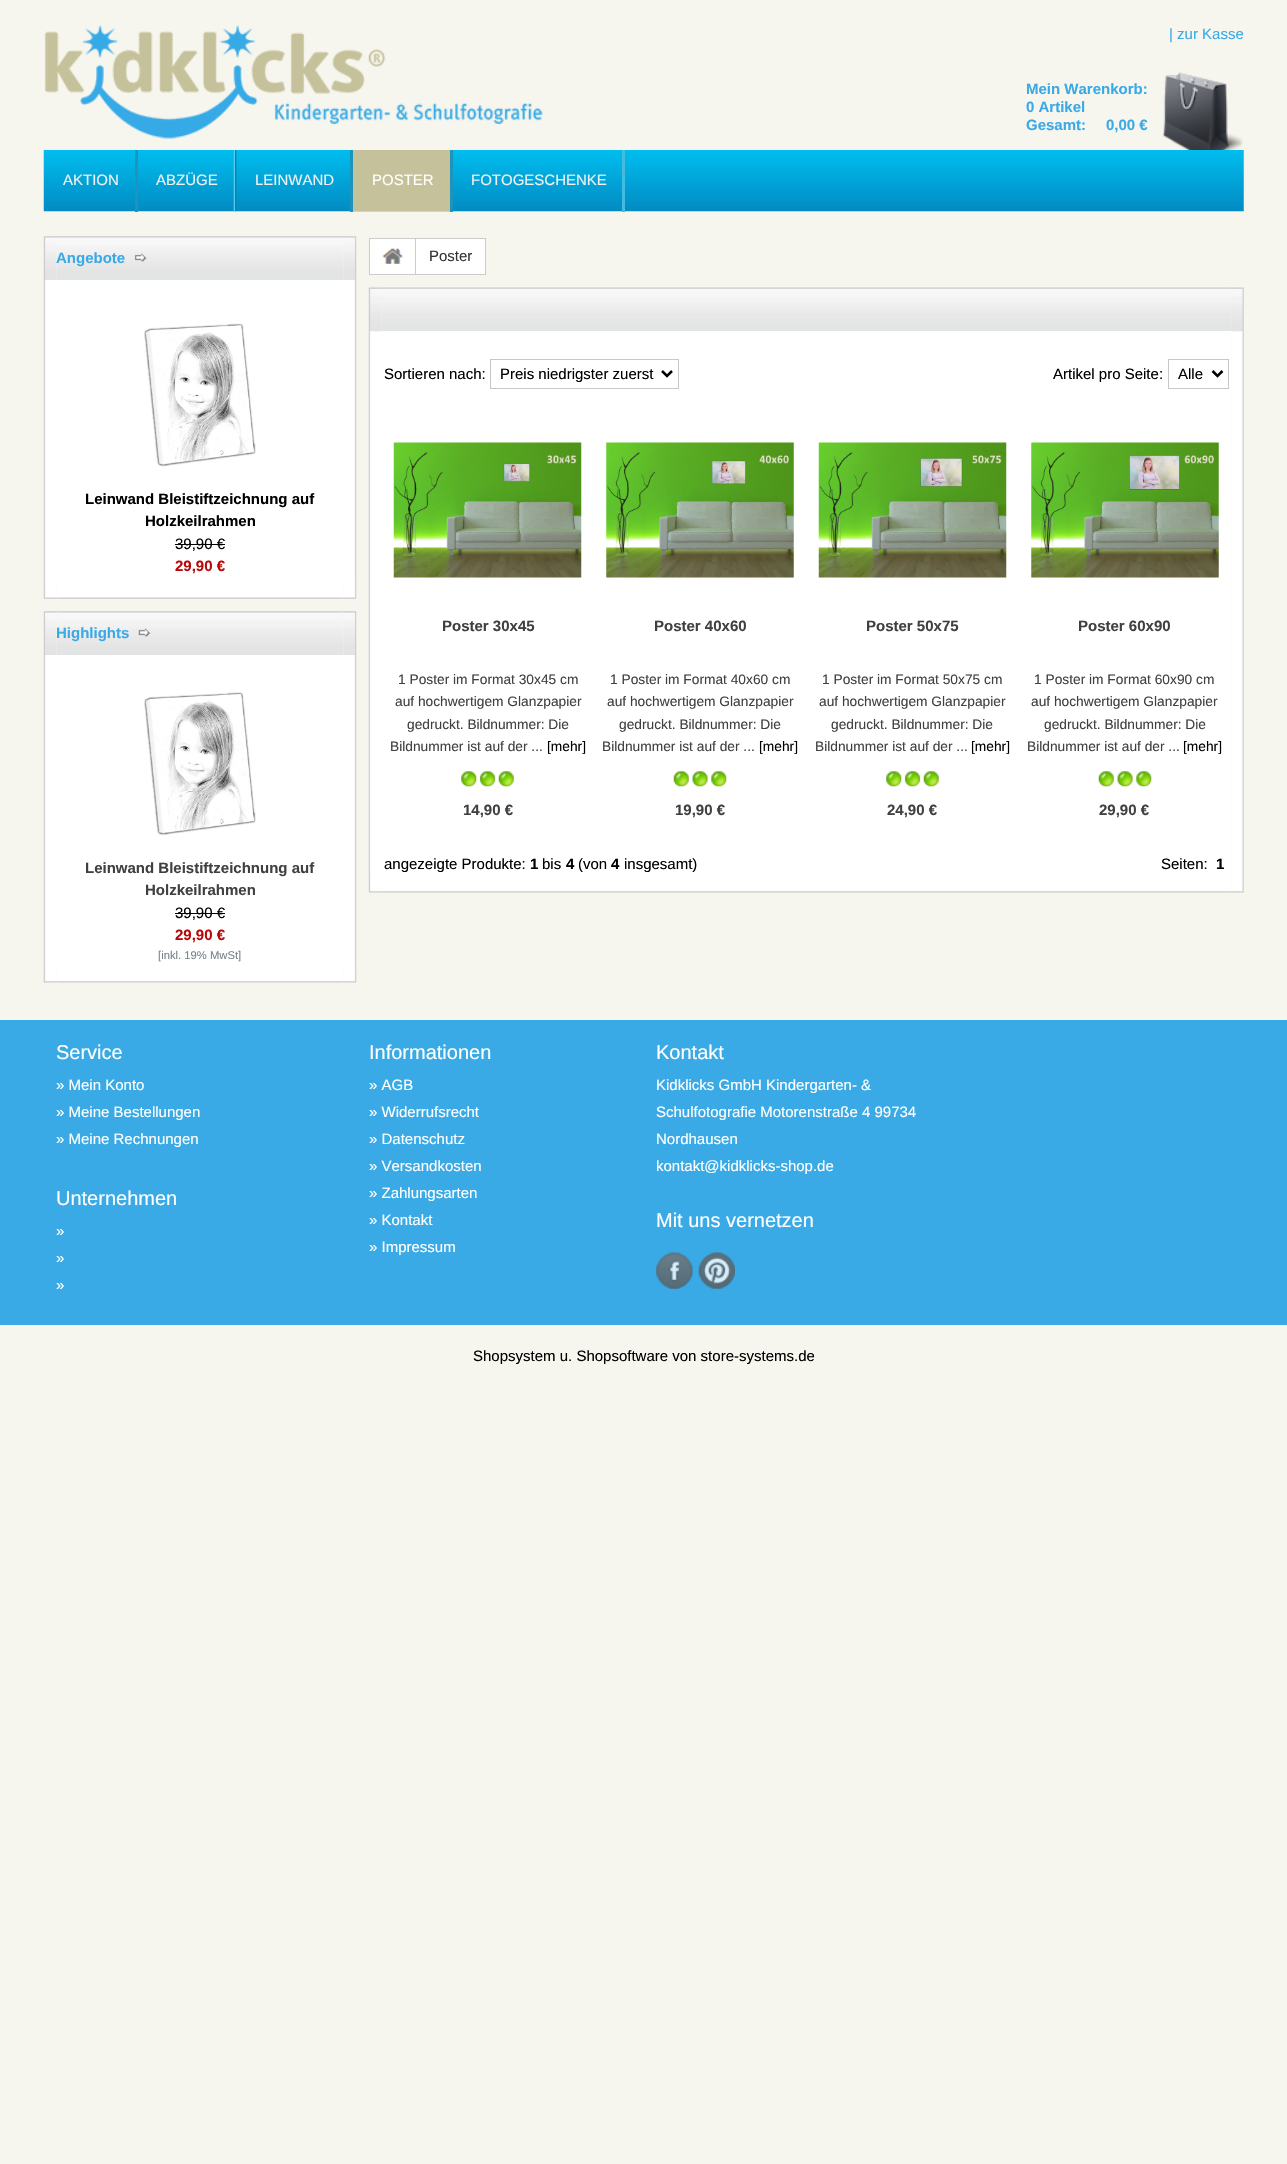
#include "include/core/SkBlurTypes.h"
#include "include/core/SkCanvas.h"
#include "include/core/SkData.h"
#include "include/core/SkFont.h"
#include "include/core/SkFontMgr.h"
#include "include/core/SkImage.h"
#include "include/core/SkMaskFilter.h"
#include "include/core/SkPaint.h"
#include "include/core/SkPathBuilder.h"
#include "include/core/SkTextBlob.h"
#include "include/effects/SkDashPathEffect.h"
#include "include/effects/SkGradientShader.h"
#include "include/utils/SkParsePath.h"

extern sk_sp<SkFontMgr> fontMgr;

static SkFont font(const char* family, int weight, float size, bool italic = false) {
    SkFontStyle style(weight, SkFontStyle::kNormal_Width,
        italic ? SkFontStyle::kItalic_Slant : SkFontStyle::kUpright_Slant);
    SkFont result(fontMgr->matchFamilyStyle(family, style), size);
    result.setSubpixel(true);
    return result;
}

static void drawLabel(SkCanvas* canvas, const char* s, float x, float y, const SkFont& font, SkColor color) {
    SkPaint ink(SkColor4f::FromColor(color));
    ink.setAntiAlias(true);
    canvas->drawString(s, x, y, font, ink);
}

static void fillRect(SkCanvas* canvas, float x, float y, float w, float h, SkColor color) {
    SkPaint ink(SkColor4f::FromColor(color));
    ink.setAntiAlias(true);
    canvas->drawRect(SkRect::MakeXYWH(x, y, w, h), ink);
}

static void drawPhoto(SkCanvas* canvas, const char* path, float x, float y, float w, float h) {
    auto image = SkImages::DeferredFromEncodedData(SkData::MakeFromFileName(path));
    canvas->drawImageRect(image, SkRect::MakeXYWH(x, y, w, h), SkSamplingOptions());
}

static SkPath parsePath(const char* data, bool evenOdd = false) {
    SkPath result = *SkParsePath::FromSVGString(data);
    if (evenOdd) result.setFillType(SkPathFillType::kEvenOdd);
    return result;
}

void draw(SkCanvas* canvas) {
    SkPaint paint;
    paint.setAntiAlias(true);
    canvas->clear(0xFFF6F5EE);
    drawPhoto(canvas, "assets/img1.png", 44, 25, 499, 114);
    SkFont font1 = font("Liberation Sans", 400, 15);
    drawLabel(canvas, "| zur Kasse", 1169, 39, font1, 0xFF39AAE6);
    SkFont font2 = font("Liberation Sans", 700, 15);
    drawLabel(canvas, "Mein Warenkorb:", 1026, 94, font2, 0xFF39AAE6);
    drawLabel(canvas, "0 Artikel", 1026, 112, font2, 0xFF39AAE6);
    drawLabel(canvas, "Gesamt:", 1026, 130, font2, 0xFF39AAE6);
    drawLabel(canvas, "0,00 €", 1106, 130, font2, 0xFF39AAE6);
    drawPhoto(canvas, "assets/img2.png", 1162, 72, 81, 78);
    drawPhoto(canvas, "assets/img3.png", 43, 150, 1201, 62);
    fillRect(canvas, 135, 150, 3, 62, 0xFF1D94BB);
    drawLabel(canvas, "AKTION", 63, 185, font1, 0xFFF0F0F0);
    drawPhoto(canvas, "assets/img4.png", 233, 150, 4, 62);
    drawLabel(canvas, "ABZÜGE", 156, 185, font1, 0xFFF0F0F0);
    fillRect(canvas, 350, 150, 3, 62, 0xFF1D94BB);
    drawLabel(canvas, "LEINWAND", 255, 185, font1, 0xFFF0F0F0);
    fillRect(canvas, 353, 150, 97, 61, 0xFFC5C19A);
    fillRect(canvas, 450, 150, 3, 62, 0xFF1D94BB);
    drawLabel(canvas, "POSTER", 372, 185, font1, 0xFFFFFFFF);
    fillRect(canvas, 622, 150, 3, 62, 0xFF45BBE0);
    drawLabel(canvas, "FOTOGESCHENKE", 471, 185, font1, 0xFFF0F0F0);
    drawPhoto(canvas, "assets/img5.png", 43, 236, 13, 44);
    drawPhoto(canvas, "assets/img6.png", 56, 236, 288, 44);
    drawLabel(canvas, "Angebote", 56, 263, font2, 0xFF39AAE6);
    drawPhoto(canvas, "assets/img7.png", 134, 253, 13, 9);
    drawPhoto(canvas, "assets/img8.png", 344, 236, 13, 44);
    drawPhoto(canvas, "assets/img9.png", 43, 280, 14, 302);
    fillRect(canvas, 56, 280, 288, 301, 0xFFFFFFFF);
    drawPhoto(canvas, "assets/img10.png", 144, 323, 112, 144);
    drawLabel(canvas, "Leinwand Bleistiftzeichnung auf", 85, 504, font2, 0xFF000000);
    drawLabel(canvas, "Holzkeilrahmen", 145, 526, font2, 0xFF000000);
    drawLabel(canvas, "39,90 €", 175, 549, font1, 0xFF000000);
    fillRect(canvas, 175, 544, 50, 1, 0xFF000000);
    drawLabel(canvas, "29,90 €", 175, 571, font2, 0xFFB70909);
    drawPhoto(canvas, "assets/img11.png", 344, 280, 13, 302);
    drawPhoto(canvas, "assets/img12.png", 43, 581, 13, 18);
    drawPhoto(canvas, "assets/img13.png", 56, 581, 288, 18);
    drawPhoto(canvas, "assets/img14.png", 344, 581, 13, 18);
    drawPhoto(canvas, "assets/img5.png", 43, 611, 13, 44);
    drawPhoto(canvas, "assets/img6.png", 56, 611, 288, 44);
    drawLabel(canvas, "Highlights", 56, 638, font2, 0xFF39AAE6);
    drawPhoto(canvas, "assets/img15.png", 138, 628, 13, 9);
    drawPhoto(canvas, "assets/img8.png", 344, 611, 13, 44);
    drawPhoto(canvas, "assets/img16.png", 43, 655, 13, 310);
    fillRect(canvas, 56, 655, 288, 310, 0xFFFFFFFF);
    drawPhoto(canvas, "assets/img17.png", 144, 692, 112, 143);
    drawLabel(canvas, "Leinwand Bleistiftzeichnung auf", 85, 873, font2, 0xFF404040);
    drawLabel(canvas, "Holzkeilrahmen", 145, 895, font2, 0xFF404040);
    drawLabel(canvas, "39,90 €", 175, 918, font1, 0xFF000000);
    fillRect(canvas, 175, 913, 50, 1, 0xFF000000);
    drawLabel(canvas, "29,90 €", 175, 940, font2, 0xFFB70909);
    SkFont font3 = font("Liberation Sans", 400, 11.25f);
    drawLabel(canvas, "[inkl. 19% MwSt]", 158, 959, font3, 0xFF758389);
    drawPhoto(canvas, "assets/img18.png", 344, 655, 13, 310);
    drawPhoto(canvas, "assets/img19.png", 43, 965, 13, 18);
    drawPhoto(canvas, "assets/img20.png", 56, 965, 288, 18);
    drawPhoto(canvas, "assets/img21.png", 344, 965, 13, 18);
    paint.setColor(0xFFFFFFFF);
    canvas->drawRect(SkRect::MakeXYWH(369.5f, 238.5f, 46, 36), paint);
    paint.setStroke(true);
    paint.setStrokeWidth(1);
    paint.setColor(0xFFCCCCCC);
    canvas->drawRect(SkRect::MakeXYWH(369.5f, 238.5f, 46, 36), paint);
    drawPhoto(canvas, "assets/img22.png", 382, 247, 21, 17);
    fillRect(canvas, 416, 239, 69, 35, 0xFFFFFFFF);
    fillRect(canvas, 416, 238, 70, 1, 0xFFCCCCCC);
    fillRect(canvas, 485, 238, 1, 37, 0xFFCCCCCC);
    fillRect(canvas, 416, 274, 70, 1, 0xFFCCCCCC);
    drawLabel(canvas, "Poster", 429, 261, font1, 0xFF333333);
    drawPhoto(canvas, "assets/img26.png", 368, 331, 13, 544);
    drawPhoto(canvas, "assets/img23.png", 368, 287, 13, 45);
    drawPhoto(canvas, "assets/img24.png", 381, 287, 851, 45);
    drawPhoto(canvas, "assets/img33.png", 1231, 331, 13, 544);
    drawPhoto(canvas, "assets/img25.png", 1231, 287, 13, 45);
    fillRect(canvas, 381, 331, 850, 544, 0xFFFFFFFF);
    drawLabel(canvas, "Sortieren nach:", 384, 379, font1, 0xFF000000);
    paint.setColor(0xFFC7C7C7);
    canvas->drawRect(SkRect::MakeXYWH(490.5f, 359.5f, 188, 29), paint);
    paint.setStrokeWidth(2.5f);
    paint.setColor(0xFF000000);
    canvas->drawPath(parsePath("M662 371L667 376L672 371"), paint);
    drawLabel(canvas, "Preis niedrigster zuerst", 500, 379, font1, 0xFF000000);
    drawLabel(canvas, "Artikel pro Seite:", 1053, 379, font1, 0xFF000000);
    paint.setStrokeWidth(1);
    paint.setColor(0xFFC7C7C7);
    canvas->drawRect(SkRect::MakeXYWH(1168.5f, 359.5f, 60, 29), paint);
    paint.setStrokeWidth(2.5f);
    paint.setColor(0xFF000000);
    canvas->drawPath(parsePath("M1212.5 371L1217.5 376L1222.5 371"), paint);
    drawLabel(canvas, "Alle", 1178, 379, font1, 0xFF000000);
    drawPhoto(canvas, "assets/img27.png", 393, 442, 189, 136);
    drawLabel(canvas, "Poster 30x45", 442, 631, font2, 0xFF404040);
    SkFont font4 = font("Liberation Sans", 400, 13.75f);
    drawLabel(canvas, "1 Poster im Format 30x45 cm", 398, 684, font4, 0xFF404040);
    drawLabel(canvas, "auf hochwertigem Glanzpapier", 395, 706, font4, 0xFF404040);
    drawLabel(canvas, "gedruckt. Bildnummer: Die", 407, 729, font4, 0xFF404040);
    drawLabel(canvas, "Bildnummer ist auf der ...", 390, 751, font4, 0xFF404040);
    drawLabel(canvas, "[mehr]", 547, 751, font4, 0xFF000000);
    drawPhoto(canvas, "assets/img28.png", 461, 771, 53, 16);
    drawLabel(canvas, "14,90 €", 463, 815, font2, 0xFF404040);
    drawPhoto(canvas, "assets/img29.png", 606, 442, 188, 136);
    drawLabel(canvas, "Poster 40x60", 654, 631, font2, 0xFF404040);
    drawLabel(canvas, "1 Poster im Format 40x60 cm", 610, 684, font4, 0xFF404040);
    drawLabel(canvas, "auf hochwertigem Glanzpapier", 607, 706, font4, 0xFF404040);
    drawLabel(canvas, "gedruckt. Bildnummer: Die", 619, 729, font4, 0xFF404040);
    drawLabel(canvas, "Bildnummer ist auf der ...", 602, 751, font4, 0xFF404040);
    drawLabel(canvas, "[mehr]", 759, 751, font4, 0xFF000000);
    drawPhoto(canvas, "assets/img30.png", 673, 771, 54, 16);
    drawLabel(canvas, "19,90 €", 675, 815, font2, 0xFF404040);
    drawPhoto(canvas, "assets/img31.png", 818, 442, 189, 136);
    drawLabel(canvas, "Poster 50x75", 866, 631, font2, 0xFF404040);
    drawLabel(canvas, "1 Poster im Format 50x75 cm", 822, 684, font4, 0xFF404040);
    drawLabel(canvas, "auf hochwertigem Glanzpapier", 819, 706, font4, 0xFF404040);
    drawLabel(canvas, "gedruckt. Bildnummer: Die", 831, 729, font4, 0xFF404040);
    drawLabel(canvas, "Bildnummer ist auf der ...", 815, 751, font4, 0xFF404040);
    drawLabel(canvas, "[mehr]", 971, 751, font4, 0xFF000000);
    drawPhoto(canvas, "assets/img28.png", 886, 771, 53, 16);
    drawLabel(canvas, "24,90 €", 887, 815, font2, 0xFF404040);
    drawPhoto(canvas, "assets/img32.png", 1031, 442, 188, 136);
    drawLabel(canvas, "Poster 60x90", 1078, 631, font2, 0xFF404040);
    drawLabel(canvas, "1 Poster im Format 60x90 cm", 1034, 684, font4, 0xFF404040);
    drawLabel(canvas, "auf hochwertigem Glanzpapier", 1031, 706, font4, 0xFF404040);
    drawLabel(canvas, "gedruckt. Bildnummer: Die", 1044, 729, font4, 0xFF404040);
    drawLabel(canvas, "Bildnummer ist auf der ...", 1027, 751, font4, 0xFF404040);
    drawLabel(canvas, "[mehr]", 1183, 751, font4, 0xFF000000);
    drawPhoto(canvas, "assets/img30.png", 1098, 771, 54, 16);
    drawLabel(canvas, "29,90 €", 1099, 815, font2, 0xFF404040);
    drawLabel(canvas, "angezeigte Produkte:", 384, 869, font1, 0xFF000000);
    drawLabel(canvas, "1", 530, 869, font2, 0xFF000000);
    drawLabel(canvas, "bis", 542, 869, font1, 0xFF000000);
    drawLabel(canvas, "4", 566, 869, font2, 0xFF000000);
    drawLabel(canvas, "(von", 578, 869, font1, 0xFF000000);
    drawLabel(canvas, "4", 611, 869, font2, 0xFF000000);
    drawLabel(canvas, "insgesamt)", 624, 869, font1, 0xFF000000);
    drawLabel(canvas, "Seiten:", 1161, 869, font1, 0xFF000000);
    drawLabel(canvas, "1", 1216, 869, font2, 0xFF000000);
    drawPhoto(canvas, "assets/img19.png", 368, 875, 13, 18);
    drawPhoto(canvas, "assets/img34.png", 381, 875, 851, 18);
    drawPhoto(canvas, "assets/img35.png", 1231, 875, 13, 18);
    fillRect(canvas, 0, 1020, 1287, 305, 0xFF39AAE6);
    SkFont font5 = font("Liberation Sans", 400, 20);
    drawLabel(canvas, "Service", 56, 1059, font5, 0xFFFFFFFF);
    drawLabel(canvas, "» Mein Konto", 56, 1090, font1, 0xFFFFFFFF);
    drawLabel(canvas, "» Meine Bestellungen", 56, 1117, font1, 0xFFFFFFFF);
    drawLabel(canvas, "» Meine Rechnungen", 56, 1144, font1, 0xFFFFFFFF);
    drawLabel(canvas, "Unternehmen", 56, 1205, font5, 0xFFFFFFFF);
    drawLabel(canvas, "»", 56, 1236, font1, 0xFFFFFFFF);
    drawLabel(canvas, "»", 56, 1263, font1, 0xFFFFFFFF);
    drawLabel(canvas, "»", 56, 1290, font1, 0xFFFFFFFF);
    drawLabel(canvas, "Informationen", 369, 1059, font5, 0xFFFFFFFF);
    drawLabel(canvas, "» AGB", 369, 1090, font1, 0xFFFFFFFF);
    drawLabel(canvas, "» Widerrufsrecht", 369, 1117, font1, 0xFFFFFFFF);
    drawLabel(canvas, "» Datenschutz", 369, 1144, font1, 0xFFFFFFFF);
    drawLabel(canvas, "» Versandkosten", 369, 1171, font1, 0xFFFFFFFF);
    drawLabel(canvas, "» Zahlungsarten", 369, 1198, font1, 0xFFFFFFFF);
    drawLabel(canvas, "» Kontakt", 369, 1225, font1, 0xFFFFFFFF);
    drawLabel(canvas, "» Impressum", 369, 1252, font1, 0xFFFFFFFF);
    drawLabel(canvas, "Kontakt", 656, 1059, font5, 0xFFFFFFFF);
    drawLabel(canvas, "Kidklicks GmbH Kindergarten- &", 656, 1090, font1, 0xFFFFFFFF);
    drawLabel(canvas, "Schulfotografie Motorenstraße 4 99734", 656, 1117, font1, 0xFFFFFFFF);
    drawLabel(canvas, "Nordhausen", 656, 1144, font1, 0xFFFFFFFF);
    drawLabel(canvas, "kontakt@kidklicks-shop.de", 656, 1171, font1, 0xFFFFFFFF);
    drawLabel(canvas, "Mit uns vernetzen", 656, 1227, font5, 0xFFFFFFFF);
    drawPhoto(canvas, "assets/img36.png", 656, 1252, 37, 37);
    drawPhoto(canvas, "assets/img37.png", 698, 1252, 37, 37);
    drawLabel(canvas, "Shopsystem u. Shopsoftware von store-systems.de", 473, 1361, font1, 0xFF000000);
}
